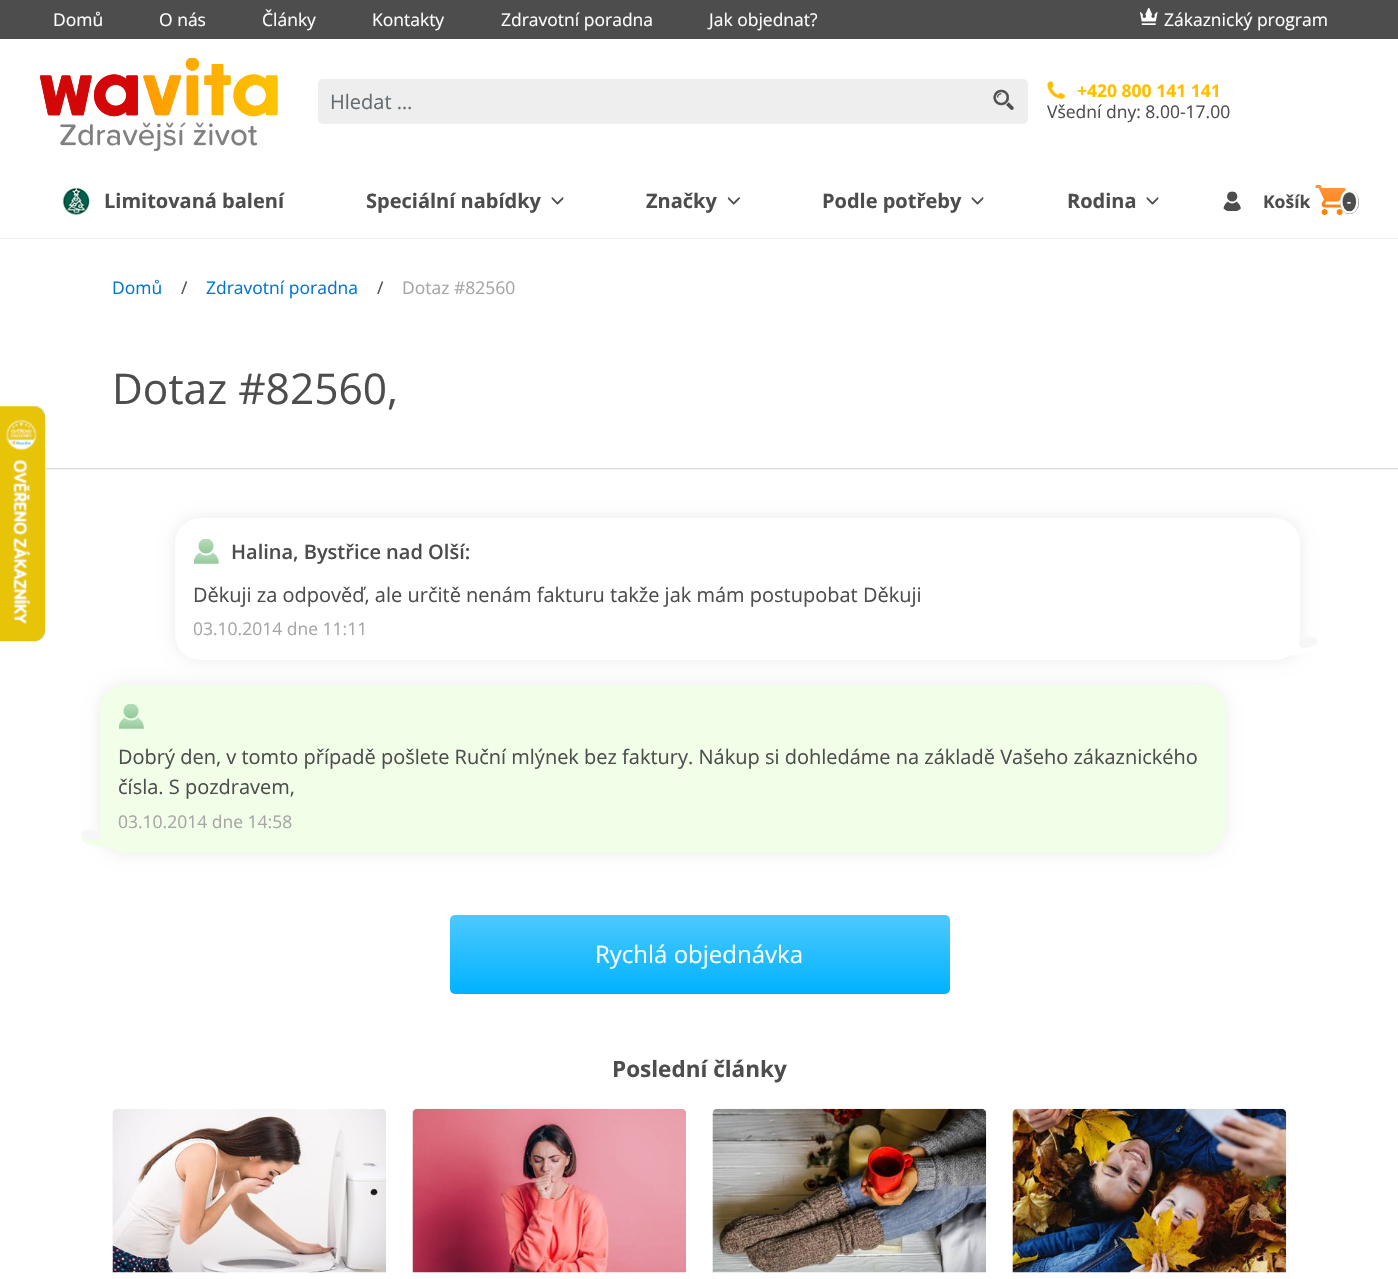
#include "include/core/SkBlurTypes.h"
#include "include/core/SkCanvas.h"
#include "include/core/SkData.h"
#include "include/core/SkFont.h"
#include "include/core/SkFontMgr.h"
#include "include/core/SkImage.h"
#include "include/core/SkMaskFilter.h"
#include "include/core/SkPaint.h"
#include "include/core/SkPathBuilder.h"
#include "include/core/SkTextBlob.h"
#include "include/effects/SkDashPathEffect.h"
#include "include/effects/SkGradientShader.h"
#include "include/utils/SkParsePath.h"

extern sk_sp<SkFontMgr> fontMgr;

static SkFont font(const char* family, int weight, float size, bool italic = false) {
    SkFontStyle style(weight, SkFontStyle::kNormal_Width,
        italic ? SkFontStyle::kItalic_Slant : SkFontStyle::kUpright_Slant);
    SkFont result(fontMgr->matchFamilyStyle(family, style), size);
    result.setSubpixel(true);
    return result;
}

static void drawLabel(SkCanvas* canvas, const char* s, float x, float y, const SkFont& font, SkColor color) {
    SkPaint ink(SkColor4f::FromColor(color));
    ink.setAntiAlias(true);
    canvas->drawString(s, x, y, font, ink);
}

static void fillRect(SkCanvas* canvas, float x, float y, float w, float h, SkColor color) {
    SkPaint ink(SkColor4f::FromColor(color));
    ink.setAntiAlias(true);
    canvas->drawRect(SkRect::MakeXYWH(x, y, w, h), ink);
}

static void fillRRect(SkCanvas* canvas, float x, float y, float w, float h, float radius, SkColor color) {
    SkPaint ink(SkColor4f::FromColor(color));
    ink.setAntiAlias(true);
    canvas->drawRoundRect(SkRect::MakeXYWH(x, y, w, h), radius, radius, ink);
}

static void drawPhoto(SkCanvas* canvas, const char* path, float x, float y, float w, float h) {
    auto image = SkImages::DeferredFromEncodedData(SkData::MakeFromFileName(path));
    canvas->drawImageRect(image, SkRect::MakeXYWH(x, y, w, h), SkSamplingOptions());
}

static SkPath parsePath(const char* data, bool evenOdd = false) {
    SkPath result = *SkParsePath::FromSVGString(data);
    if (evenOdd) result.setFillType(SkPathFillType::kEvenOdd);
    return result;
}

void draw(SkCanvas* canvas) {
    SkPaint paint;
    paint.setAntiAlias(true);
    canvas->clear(0xFFFFFFFF);
    paint.setColor(0x26000000);
    paint.setMaskFilter(SkMaskFilter::MakeBlur(kNormal_SkBlurStyle, 0.5f));
    canvas->drawRect(SkRect::MakeXYWH(0, 325, 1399, 144), paint);
    paint.setMaskFilter(nullptr);
    fillRect(canvas, 0, 324, 1398, 144, 0xFFFFFFFF);
    drawPhoto(canvas, "assets/img1.png", 0, 406, 45, 236);
    fillRect(canvas, 0, 0, 1398, 39, 0xFF4D4D4D);
    SkFont font1 = font("Open Sans", 400, 17.5f);
    drawLabel(canvas, "Domů", 53, 26, font1, 0xFFFFFFFF);
    drawLabel(canvas, "O nás", 159, 26, font1, 0xFFFFFFFF);
    drawLabel(canvas, "Články", 262, 26, font1, 0xFFFFFFFF);
    drawLabel(canvas, "Kontakty", 372, 26, font1, 0xFFFFFFFF);
    drawLabel(canvas, "Zdravotní poradna", 501, 26, font1, 0xFFFFFFFF);
    drawLabel(canvas, "Jak objednat?", 709, 26, font1, 0xFFFFFFFF);
    drawPhoto(canvas, "assets/img2.png", 1140, 8, 18, 17);
    drawLabel(canvas, "Zákaznický program", 1164, 26, font1, 0xFFFFFFFF);
    drawPhoto(canvas, "assets/img3.png", 40, 58, 238, 93);
    fillRRect(canvas, 318, 79, 710, 45, 5, 0xFFEEEEEE);
    SkFont font2 = font("Open Sans", 400, 20);
    drawLabel(canvas, "Hledat …", 330, 109, font2, 0xFF636C72);
    drawPhoto(canvas, "assets/img4.png", 993, 89, 21, 21);
    drawPhoto(canvas, "assets/img5.png", 1047, 81, 18, 18);
    SkFont font3 = font("Open Sans", 700, 17.5f);
    drawLabel(canvas, "+420 800 141 141", 1077, 97, font3, 0xFFFFBF00);
    drawLabel(canvas, "Všední dny: 8.00-17.00", 1047, 118, font1, 0xFF4D4D4D);
    fillRect(canvas, 0, 238, 1398, 1, 0xFFEEEEEE);
    drawPhoto(canvas, "assets/img6.png", 62, 187, 28, 29);
    SkFont font4 = font("Open Sans", 700, 20);
    drawLabel(canvas, "Limitovaná balení", 104, 208, font4, 0xFF4D4D4D);
    drawLabel(canvas, "Speciální nabídky", 366, 208, font4, 0xFF4D4D4D);
    drawPhoto(canvas, "assets/img7.png", 551, 197, 13, 8);
    drawLabel(canvas, "Značky", 646, 208, font4, 0xFF4D4D4D);
    drawPhoto(canvas, "assets/img8.png", 727, 197, 13, 8);
    drawLabel(canvas, "Podle potřeby", 822, 208, font4, 0xFF4D4D4D);
    drawPhoto(canvas, "assets/img7.png", 971, 197, 13, 8);
    drawLabel(canvas, "Rodina", 1067, 208, font4, 0xFF4D4D4D);
    drawPhoto(canvas, "assets/img7.png", 1146, 197, 13, 8);
    drawPhoto(canvas, "assets/img9.png", 1223, 191, 18, 20);
    drawLabel(canvas, "Košík", 1263, 208, font3, 0xFF4D4D4D);
    drawPhoto(canvas, "assets/img10.png", 1315, 185, 31, 30);
    paint.setColor(0xFF4D4D4D);
    canvas->drawOval(SkRect::MakeXYWH(1340, 190, 19, 24), paint);
    paint.setStroke(true);
    paint.setStrokeWidth(2.5f);
    paint.setColor(0xFFFFFFFF);
    canvas->drawPath(parsePath("M1349.5 191C1360 191 1360 212.5 1349.5 212.5C1338.5 212.5 1338.5 191 1349.5 191Z"), paint);
    SkFont font5 = font("Open Sans", 700, 12);
    drawLabel(canvas, "-", 1347, 206, font5, 0xFFFFFFFF);
    drawLabel(canvas, "Domů", 112, 294, font1, 0xFF0275D8);
    drawLabel(canvas, "/", 181, 294, font1, 0xFF4D4D4D);
    drawLabel(canvas, "Zdravotní poradna", 206, 294, font1, 0xFF0275D8);
    drawLabel(canvas, "/", 377, 294, font1, 0xFF4D4D4D);
    drawLabel(canvas, "Dotaz #82560", 402, 294, font1, 0xFFA6A6A6);
    SkFont font6 = font("Open Sans", 400, 42.5f);
    drawLabel(canvas, "Dotaz #82560,", 112, 404, font6, 0xFF4D4D4D);
    paint.setStroke(false);
    paint.setColor(0x14000000);
    paint.setMaskFilter(SkMaskFilter::MakeBlur(kNormal_SkBlurStyle, 7.5f));
    canvas->drawRoundRect(SkRect::MakeXYWH(175, 518, 1125, 142), 25, 25, paint);
    paint.setMaskFilter(nullptr);
    fillRRect(canvas, 175, 518, 1125, 142, 25, 0xFFFFFFFF);
    drawPhoto(canvas, "assets/img11.png", 194, 539, 25, 25);
    SkFont font7 = font("Open Sans", 600, 20);
    drawLabel(canvas, "Halina, Bystřice nad Olší:", 231, 559, font7, 0xFF4D4D4D);
    drawLabel(canvas, "Děkuji za odpověď, ale určitě nenám fakturu takže jak mám postupobat Děkuji", 193, 602, font2, 0xFF4D4D4D);
    drawLabel(canvas, "03.10.2014 dne 11:11", 193, 635, font1, 0xFFA6A6A6);
    paint.setColor(0xFFFFFFFF);
    canvas->drawPath(parsePath("M1292 643C1306 641 1317 642 1318 646C1318 649 1308 654 1294 655C1280 657 1269 656 1268 653C1268 649 1279 645 1292 643Z"), paint);
    paint.setColor(0xFFF6F6F6);
    canvas->drawPath(parsePath("M1317.5 640.5C1318.5 646.5 1300.5 651 1299 644.5C1297.5 638 1316 634 1317.5 640.5Z"), paint);
    paint.setColor(0x14000000);
    paint.setMaskFilter(SkMaskFilter::MakeBlur(kNormal_SkBlurStyle, 7.5f));
    canvas->drawRoundRect(SkRect::MakeXYWH(100, 685, 1125, 168), 25, 25, paint);
    paint.setMaskFilter(nullptr);
    fillRRect(canvas, 100, 685, 1125, 168, 25, 0xFFF2FFE8);
    drawPhoto(canvas, "assets/img12.png", 119, 704, 25, 25);
    drawLabel(canvas, "Dobrý den, v tomto případě pošlete Ruční mlýnek bez faktury. Nákup si dohledáme na základě Vašeho zákaznického", 118, 764, font2, 0xFF4D4D4D);
    drawLabel(canvas, "čísla. S pozdravem,", 118, 794, font2, 0xFF4D4D4D);
    drawLabel(canvas, "03.10.2014 dne 14:58", 118, 828, font1, 0xFFA6A6A6);
    paint.setColor(0xFFF2FFE8);
    canvas->drawPath(parsePath("M106 836C120 837 131 842 130 845C130 849 118 850 105 848C91 846 80 842 81 838C81 835 93 834 106 836Z"), paint);
    paint.setColor(0xFFF6F6F6);
    canvas->drawPath(parsePath("M81.5 833C83 826.5 101 830.5 100 837C98.5 843.5 80 839 81.5 833Z"), paint);
    {
        const SkColor colors[] = {0xFF4DC9FF, 0xFF00B2FF};
        const float stops[] = {0, 1};
        const SkPoint ends[] = {{700, 915}, {700, 994}};
        paint.setShader(SkGradientShader::MakeLinear(ends, colors, stops, 2, SkTileMode::kClamp));
        paint.setAlpha(255);
    }
    canvas->drawRoundRect(SkRect::MakeXYWH(450, 915, 500, 79), 5, 5, paint);
    SkFont font8 = font("Open Sans", 400, 24);
    drawLabel(canvas, "Rychlá objednávka", 595, 963, font8, 0xFFFFFFFF);
    SkFont font9 = font("Open Sans", 700, 22.5f);
    drawLabel(canvas, "Poslední články", 612, 1077, font9, 0xFF4D4D4D);
    paint.setShader(nullptr);
    paint.setColor(0x26000000);
    paint.setMaskFilter(SkMaskFilter::MakeBlur(kNormal_SkBlurStyle, 0.5f));
    canvas->drawRoundRect(SkRect::MakeXYWH(113, 1110, 275, 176), 5, 5, paint);
    paint.setMaskFilter(nullptr);
    fillRRect(canvas, 113, 1109, 275, 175, 5, 0xFFFFFFFF);
    drawPhoto(canvas, "assets/img13.png", 112, 1109, 275, 164);
    paint.setMaskFilter(SkMaskFilter::MakeBlur(kNormal_SkBlurStyle, 0.5f));
    canvas->drawRoundRect(SkRect::MakeXYWH(413, 1110, 275, 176), 5, 5, paint);
    paint.setMaskFilter(nullptr);
    fillRRect(canvas, 413, 1109, 275, 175, 5, 0xFFFFFFFF);
    drawPhoto(canvas, "assets/img14.png", 412, 1108, 275, 165);
    paint.setMaskFilter(SkMaskFilter::MakeBlur(kNormal_SkBlurStyle, 0.5f));
    canvas->drawRoundRect(SkRect::MakeXYWH(713, 1110, 275, 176), 5, 5, paint);
    paint.setMaskFilter(nullptr);
    fillRRect(canvas, 713, 1109, 275, 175, 5, 0xFFFFFFFF);
    drawPhoto(canvas, "assets/img15.png", 712, 1108, 275, 165);
    paint.setMaskFilter(SkMaskFilter::MakeBlur(kNormal_SkBlurStyle, 0.5f));
    canvas->drawRoundRect(SkRect::MakeXYWH(1013, 1110, 275, 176), 5, 5, paint);
    paint.setMaskFilter(nullptr);
    fillRRect(canvas, 1013, 1109, 275, 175, 5, 0xFFFFFFFF);
    drawPhoto(canvas, "assets/img16.png", 1012, 1108, 275, 165);
}
